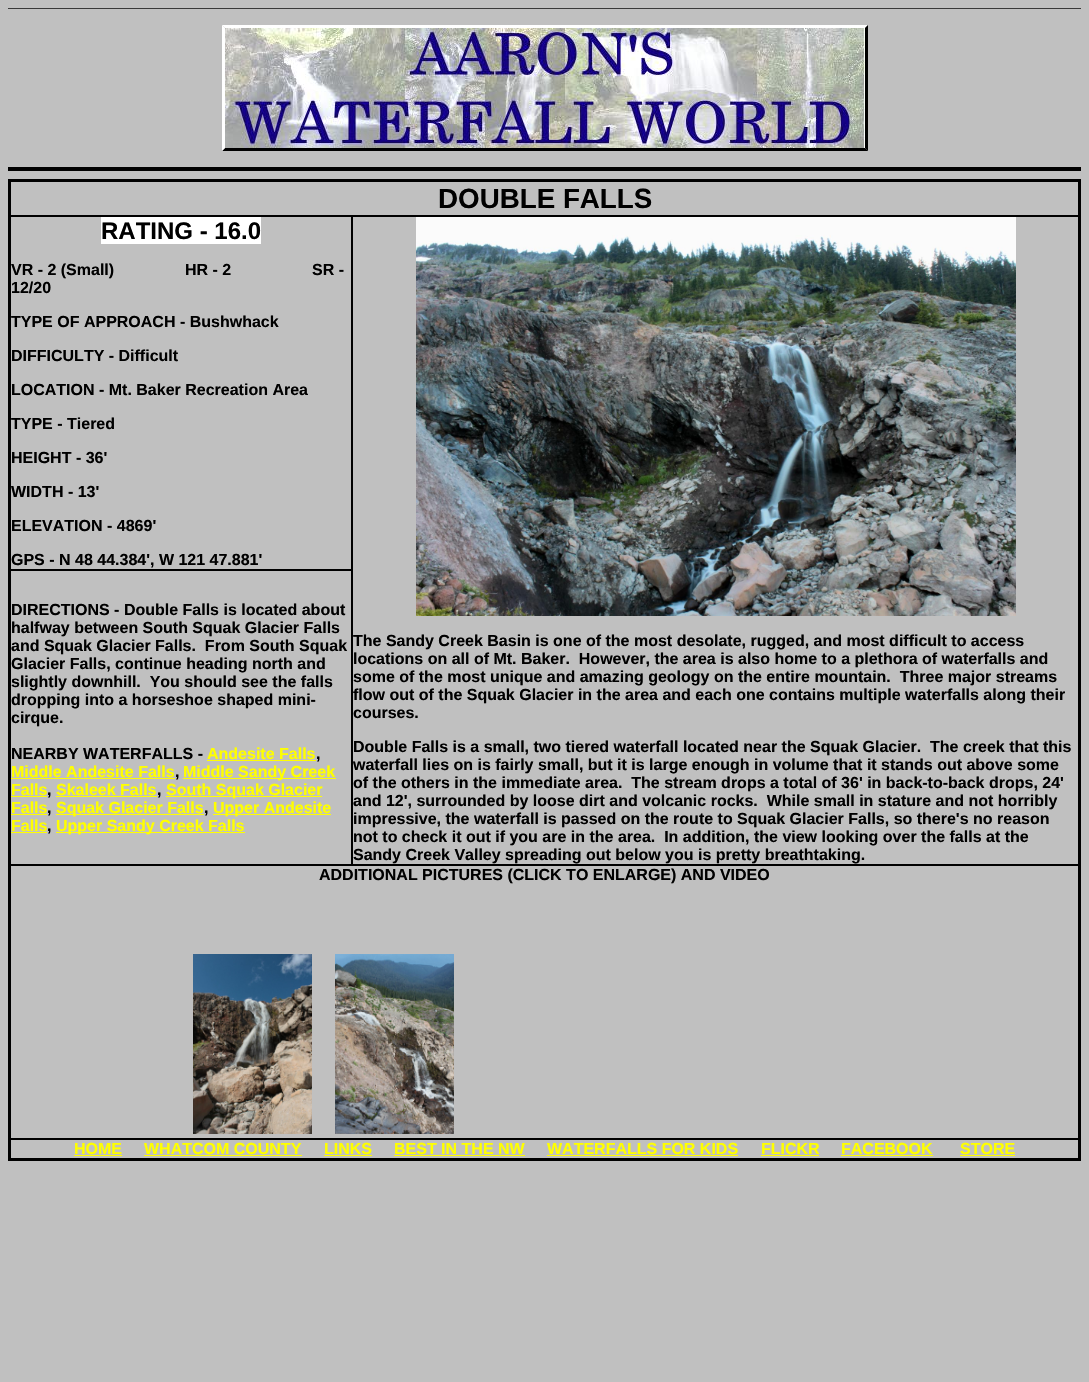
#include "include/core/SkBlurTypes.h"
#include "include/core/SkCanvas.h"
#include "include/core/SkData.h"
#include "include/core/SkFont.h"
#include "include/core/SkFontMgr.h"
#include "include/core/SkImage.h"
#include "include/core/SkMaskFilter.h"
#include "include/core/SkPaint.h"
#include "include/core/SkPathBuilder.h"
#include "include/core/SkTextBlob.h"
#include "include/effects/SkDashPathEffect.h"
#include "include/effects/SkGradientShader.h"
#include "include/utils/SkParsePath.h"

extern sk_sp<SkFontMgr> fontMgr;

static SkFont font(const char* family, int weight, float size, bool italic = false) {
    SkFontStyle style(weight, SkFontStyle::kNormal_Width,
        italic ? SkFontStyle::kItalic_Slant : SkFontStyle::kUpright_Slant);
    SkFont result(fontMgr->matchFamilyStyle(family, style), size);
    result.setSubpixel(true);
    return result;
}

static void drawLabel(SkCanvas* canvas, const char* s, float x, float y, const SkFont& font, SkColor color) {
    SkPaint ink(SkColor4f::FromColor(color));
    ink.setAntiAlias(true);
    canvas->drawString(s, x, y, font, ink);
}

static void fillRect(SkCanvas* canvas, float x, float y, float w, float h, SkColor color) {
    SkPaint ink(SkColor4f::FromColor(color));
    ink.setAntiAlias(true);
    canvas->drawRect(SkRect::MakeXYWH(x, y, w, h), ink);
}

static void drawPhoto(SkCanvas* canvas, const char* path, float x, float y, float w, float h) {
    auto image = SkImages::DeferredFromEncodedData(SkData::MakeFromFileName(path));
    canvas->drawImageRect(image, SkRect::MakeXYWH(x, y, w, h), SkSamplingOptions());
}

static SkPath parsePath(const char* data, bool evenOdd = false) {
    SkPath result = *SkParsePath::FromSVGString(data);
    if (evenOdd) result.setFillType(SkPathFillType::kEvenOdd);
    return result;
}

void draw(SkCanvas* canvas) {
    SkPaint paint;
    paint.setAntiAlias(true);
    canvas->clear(0xFFC0C0C0);
    fillRect(canvas, 8, 8, 1073, 1, 0xFF393939);
    paint.setColor(0xFFFFFFFF);
    canvas->drawPath(parsePath("M222 25H868L865 28H225Z"), paint);
    paint.setColor(0xFF000000);
    canvas->drawPath(parsePath("M868 25V151L865 148V28Z"), paint);
    canvas->drawPath(parsePath("M868 151H222L225 148H865Z"), paint);
    paint.setColor(0xFFFFFFFF);
    canvas->drawPath(parsePath("M222 151V25L225 28V148Z"), paint);
    drawPhoto(canvas, "assets/img1.png", 225, 28, 640, 120);
    fillRect(canvas, 8, 167, 1073, 4, 0xFF000000);
    paint.setStroke(true);
    paint.setStrokeWidth(2);
    paint.setColor(0xFF000000);
    canvas->drawRect(SkRect::MakeXYWH(9, 180, 1071, 980), paint);
    paint.setStrokeWidth(1);
    canvas->drawRect(SkRect::MakeXYWH(10.5f, 181.5f, 1068, 34), paint);
    SkFont font1 = font("Liberation Sans", 700, 27.75f);
    drawLabel(canvas, "DOUBLE FALLS", 438, 208, font1, 0xFF000000);
    canvas->drawRect(SkRect::MakeXYWH(10.5f, 216.5f, 341, 353), paint);
    fillRect(canvas, 101, 217, 160, 27, 0xFFFFFFFF);
    SkFont font2 = font("Liberation Sans", 700, 24);
    drawLabel(canvas, "RATING - 16.0", 101, 239, font2, 0xFF000000);
    SkFont font3 = font("Liberation Sans", 700, 16);
    drawLabel(canvas, "VR - 2 (Small)", 11, 275, font3, 0xFF000000);
    drawLabel(canvas, "HR - 2", 185, 275, font3, 0xFF000000);
    drawLabel(canvas, "SR -", 312, 275, font3, 0xFF000000);
    drawLabel(canvas, "12/20", 11, 293, font3, 0xFF000000);
    drawLabel(canvas, "TYPE OF APPROACH - Bushwhack", 11, 327, font3, 0xFF000000);
    drawLabel(canvas, "DIFFICULTY - Difficult", 11, 361, font3, 0xFF000000);
    drawLabel(canvas, "LOCATION - Mt. Baker Recreation Area", 11, 395, font3, 0xFF000000);
    drawLabel(canvas, "TYPE - Tiered", 11, 429, font3, 0xFF000000);
    drawLabel(canvas, "HEIGHT - 36'", 11, 463, font3, 0xFF000000);
    drawLabel(canvas, "WIDTH - 13'", 11, 497, font3, 0xFF000000);
    drawLabel(canvas, "ELEVATION - 4869'", 11, 531, font3, 0xFF000000);
    drawLabel(canvas, "GPS - N 48 44.384', W 121 47.881'", 11, 565, font3, 0xFF000000);
    canvas->drawRect(SkRect::MakeXYWH(352.5f, 216.5f, 726, 648), paint);
    drawPhoto(canvas, "assets/img2.png", 416, 217, 600, 399);
    drawLabel(canvas, "The Sandy Creek Basin is one of the most desolate, rugged, and most difficult to access", 353, 646, font3, 0xFF000000);
    drawLabel(canvas, "locations on all of Mt. Baker.  However, the area is also home to a plethora of waterfalls and", 353, 664, font3, 0xFF000000);
    drawLabel(canvas, "some of the most unique and amazing geology on the entire mountain.  Three major streams", 353, 682, font3, 0xFF000000);
    drawLabel(canvas, "flow out of the Squak Glacier in the area and each one contains multiple waterfalls along their", 353, 700, font3, 0xFF000000);
    drawLabel(canvas, "courses.", 353, 718, font3, 0xFF000000);
    drawLabel(canvas, "Double Falls is a small, two tiered waterfall located near the Squak Glacier.", 353, 752, font3, 0xFF000000);
    drawLabel(canvas, "The creek that this", 930, 752, font3, 0xFF000000);
    drawLabel(canvas, "waterfall lies on is fairly small, but it is large enough in volume that it stands out above some", 353, 770, font3, 0xFF000000);
    drawLabel(canvas, "of the others in the immediate area.  The stream drops a total of 36' in back-to-back drops, 24'", 353, 788, font3, 0xFF000000);
    drawLabel(canvas, "and 12', surrounded by loose dirt and volcanic rocks.  While small in stature and not horribly", 353, 806, font3, 0xFF000000);
    drawLabel(canvas, "impressive, the waterfall is passed on the route to Squak Glacier Falls, so there's no reason", 353, 824, font3, 0xFF000000);
    drawLabel(canvas, "not to check it out if you are in the area.  In addition, the view looking over the falls at the", 353, 842, font3, 0xFF000000);
    drawLabel(canvas, "Sandy Creek Valley spreading out below you is pretty breathtaking.", 353, 860, font3, 0xFF000000);
    canvas->drawRect(SkRect::MakeXYWH(10.5f, 570.5f, 341, 294), paint);
    drawLabel(canvas, "DIRECTIONS - Double Falls is located about", 11, 615, font3, 0xFF000000);
    drawLabel(canvas, "halfway between South Squak Glacier Falls", 11, 633, font3, 0xFF000000);
    drawLabel(canvas, "and Squak Glacier Falls.  From South Squak", 11, 651, font3, 0xFF000000);
    drawLabel(canvas, "Glacier Falls, continue heading north and", 11, 669, font3, 0xFF000000);
    drawLabel(canvas, "slightly downhill.  You should see the falls", 11, 687, font3, 0xFF000000);
    drawLabel(canvas, "dropping into a horseshoe shaped mini-", 11, 705, font3, 0xFF000000);
    drawLabel(canvas, "cirque.", 11, 723, font3, 0xFF000000);
    drawLabel(canvas, "NEARBY WATERFALLS -", 11, 759, font3, 0xFF000000);
    drawLabel(canvas, "Andesite Falls", 207, 759, font3, 0xFFFFFF00);
    drawLabel(canvas, ",", 316, 759, font3, 0xFF000000);
    fillRect(canvas, 207, 760, 109, 1, 0xFFFFFF00);
    drawLabel(canvas, "Middle Andesite Falls", 11, 777, font3, 0xFFFFFF00);
    drawLabel(canvas, ",", 175, 777, font3, 0xFF000000);
    fillRect(canvas, 11, 778, 164, 1, 0xFFFFFF00);
    fillRect(canvas, 183, 778, 153, 1, 0xFFFFFF00);
    drawLabel(canvas, "Middle Sandy Creek", 183, 777, font3, 0xFFFFFF00);
    drawLabel(canvas, "Falls", 11, 795, font3, 0xFFFFFF00);
    drawLabel(canvas, ",", 47, 795, font3, 0xFF000000);
    fillRect(canvas, 11, 796, 36, 1, 0xFFFFFF00);
    drawLabel(canvas, "Skaleek Falls", 56, 795, font3, 0xFFFFFF00);
    drawLabel(canvas, ",", 157, 795, font3, 0xFF000000);
    fillRect(canvas, 56, 796, 101, 1, 0xFFFFFF00);
    fillRect(canvas, 166, 796, 156, 1, 0xFFFFFF00);
    drawLabel(canvas, "South Squak Glacier", 166, 795, font3, 0xFFFFFF00);
    drawLabel(canvas, "Falls", 11, 813, font3, 0xFFFFFF00);
    drawLabel(canvas, ",", 47, 813, font3, 0xFF000000);
    fillRect(canvas, 11, 814, 36, 1, 0xFFFFFF00);
    fillRect(canvas, 56, 814, 148, 1, 0xFFFFFF00);
    drawLabel(canvas, "Squak Glacier Falls", 56, 813, font3, 0xFFFFFF00);
    drawLabel(canvas, ",", 204, 813, font3, 0xFF000000);
    fillRect(canvas, 213, 814, 118, 1, 0xFFFFFF00);
    drawLabel(canvas, "Upper Andesite", 213, 813, font3, 0xFFFFFF00);
    drawLabel(canvas, "Falls", 11, 831, font3, 0xFFFFFF00);
    drawLabel(canvas, ",", 47, 831, font3, 0xFF000000);
    fillRect(canvas, 11, 832, 36, 1, 0xFFFFFF00);
    fillRect(canvas, 56, 832, 189, 1, 0xFFFFFF00);
    drawLabel(canvas, "Upper Sandy Creek Falls", 56, 831, font3, 0xFFFFFF00);
    canvas->drawRect(SkRect::MakeXYWH(10.5f, 865.5f, 1068, 273), paint);
    drawLabel(canvas, "ADDITIONAL PICTURES (CLICK TO ENLARGE) AND VIDEO", 319, 880, font3, 0xFF000000);
    drawPhoto(canvas, "assets/img3.png", 193, 954, 119, 180);
    drawPhoto(canvas, "assets/img4.png", 335, 954, 119, 180);
    canvas->drawRect(SkRect::MakeXYWH(10.5f, 1139.5f, 1068, 19), paint);
    drawLabel(canvas, "HOME", 74, 1154, font3, 0xFFFFFF00);
    fillRect(canvas, 74, 1155, 48, 1, 0xFFFFFF00);
    drawLabel(canvas, "WHATCOM COUNTY", 144, 1154, font3, 0xFFFFFF00);
    fillRect(canvas, 144, 1155, 158, 1, 0xFFFFFF00);
    drawLabel(canvas, "LINKS", 324, 1154, font3, 0xFFFFFF00);
    fillRect(canvas, 324, 1155, 48, 1, 0xFFFFFF00);
    drawLabel(canvas, "BEST IN THE NW", 394, 1154, font3, 0xFFFFFF00);
    fillRect(canvas, 394, 1155, 131, 1, 0xFFFFFF00);
    drawLabel(canvas, "WATERFALLS FOR KIDS", 547, 1154, font3, 0xFFFFFF00);
    fillRect(canvas, 547, 1155, 191, 1, 0xFFFFFF00);
    drawLabel(canvas, "FLICKR", 761, 1154, font3, 0xFFFFFF00);
    fillRect(canvas, 761, 1155, 58, 1, 0xFFFFFF00);
    drawLabel(canvas, "FACEBOOK", 841, 1154, font3, 0xFFFFFF00);
    fillRect(canvas, 841, 1155, 92, 1, 0xFFFFFF00);
    drawLabel(canvas, "STORE", 960, 1154, font3, 0xFFFFFF00);
    fillRect(canvas, 960, 1155, 55, 1, 0xFFFFFF00);
}
